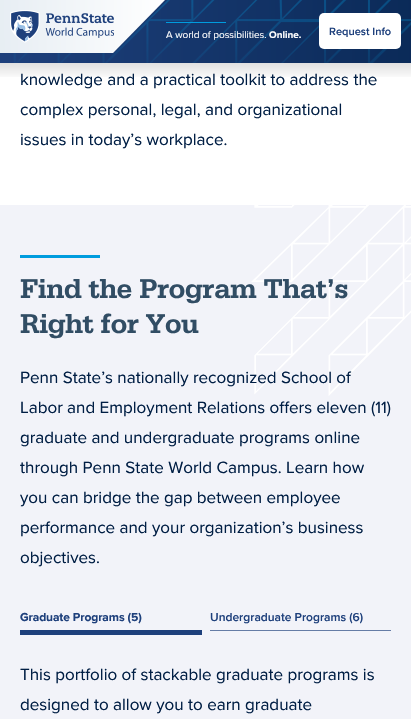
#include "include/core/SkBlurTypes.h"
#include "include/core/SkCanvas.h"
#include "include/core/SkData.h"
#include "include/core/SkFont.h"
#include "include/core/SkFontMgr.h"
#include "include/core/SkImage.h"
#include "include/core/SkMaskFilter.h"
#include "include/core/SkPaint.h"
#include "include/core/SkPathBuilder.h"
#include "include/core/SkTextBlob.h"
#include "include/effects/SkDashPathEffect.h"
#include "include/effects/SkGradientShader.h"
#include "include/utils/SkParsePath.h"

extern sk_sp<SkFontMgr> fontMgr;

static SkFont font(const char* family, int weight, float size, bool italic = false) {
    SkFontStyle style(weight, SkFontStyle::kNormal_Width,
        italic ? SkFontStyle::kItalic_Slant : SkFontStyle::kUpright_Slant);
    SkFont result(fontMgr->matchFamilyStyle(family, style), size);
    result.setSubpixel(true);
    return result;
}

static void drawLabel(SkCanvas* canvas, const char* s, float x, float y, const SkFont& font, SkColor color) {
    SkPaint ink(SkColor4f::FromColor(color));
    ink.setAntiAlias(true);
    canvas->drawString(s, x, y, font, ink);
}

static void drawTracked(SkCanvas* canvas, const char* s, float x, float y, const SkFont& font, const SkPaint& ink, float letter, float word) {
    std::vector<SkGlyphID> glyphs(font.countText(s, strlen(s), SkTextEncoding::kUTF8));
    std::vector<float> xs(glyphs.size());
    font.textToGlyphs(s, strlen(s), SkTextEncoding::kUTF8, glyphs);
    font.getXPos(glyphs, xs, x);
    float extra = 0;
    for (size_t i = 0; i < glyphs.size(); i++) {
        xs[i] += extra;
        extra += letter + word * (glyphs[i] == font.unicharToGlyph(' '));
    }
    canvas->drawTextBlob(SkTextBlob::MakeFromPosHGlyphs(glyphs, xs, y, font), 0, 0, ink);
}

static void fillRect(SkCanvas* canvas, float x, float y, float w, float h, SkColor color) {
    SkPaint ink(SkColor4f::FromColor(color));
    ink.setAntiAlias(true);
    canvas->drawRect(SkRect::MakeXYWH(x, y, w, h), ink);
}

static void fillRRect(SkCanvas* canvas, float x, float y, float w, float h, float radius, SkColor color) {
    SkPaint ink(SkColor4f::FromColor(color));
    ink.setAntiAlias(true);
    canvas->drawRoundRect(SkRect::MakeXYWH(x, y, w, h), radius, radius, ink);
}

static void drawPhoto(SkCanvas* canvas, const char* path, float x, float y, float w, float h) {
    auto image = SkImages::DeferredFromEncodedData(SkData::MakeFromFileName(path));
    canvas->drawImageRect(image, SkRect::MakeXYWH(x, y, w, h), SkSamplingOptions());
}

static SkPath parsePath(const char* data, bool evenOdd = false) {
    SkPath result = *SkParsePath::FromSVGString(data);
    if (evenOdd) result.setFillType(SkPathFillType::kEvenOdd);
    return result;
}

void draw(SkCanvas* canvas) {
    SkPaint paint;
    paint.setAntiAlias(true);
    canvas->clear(0xFFFFFFFF);
    {
        const SkColor colors[] = {0xFF1E407C, 0xFF001E44};
        const float stops[] = {0, 1};
        const SkPoint ends[] = {{0, 32}, {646, 31}};
        paint.setShader(SkGradientShader::MakeLinear(ends, colors, stops, 2, SkTileMode::kClamp));
        paint.setAlpha(255);
    }
    canvas->drawRect(SkRect::MakeXYWH(0, 0, 411, 63), paint);
    drawPhoto(canvas, "assets/img1.png", 13, 0, 398, 63);
    paint.setShader(nullptr);
    paint.setColor(0xFFFFFFFF);
    canvas->drawPath(parsePath("M-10 0H165L113 53H-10Z"), paint);
    {
        const SkColor colors[] = {0x80CCDAE6, 0x00CCDAE6};
        const float stops[] = {0, 1};
        const SkPoint ends[] = {{-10, 27}, {166, 26}};
        paint.setShader(SkGradientShader::MakeLinear(ends, colors, stops, 2, SkTileMode::kClamp));
        paint.setAlpha(255);
    }
    canvas->drawPath(parsePath("M-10 0H165L113 53H-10Z"), paint);
    drawPhoto(canvas, "assets/img2.png", 10, 10, 104, 33);
    fillRect(canvas, 166, 22, 60, 1, 0xFF009CDE);
    SkFont font1 = font("Proxima Nova", 400, 10);
    drawLabel(canvas, "A world of possibilities.", 166, 38, font1, 0xFFFFFFFF);
    SkFont font2 = font("Proxima Nova", 700, 10);
    drawLabel(canvas, "Online.", 269, 38, font2, 0xFFFFFFFF);
    fillRRect(canvas, 319, 13, 82, 36, 5, 0xFFFFFFFF);
    SkFont font3 = font("Proxima Nova", 600, 11);
    drawLabel(canvas, "Request Info", 329, 35, font3, 0xFF1E407C);
    {
        const SkColor colors[] = {0x1F000000, 0x00000000};
        const float stops[] = {0, 1};
        const SkPoint ends[] = {{206, 63}, {206, 80}};
        paint.setShader(SkGradientShader::MakeLinear(ends, colors, stops, 2, SkTileMode::kClamp));
        paint.setAlpha(255);
    }
    canvas->drawRect(SkRect::MakeXYWH(0, 63, 411, 14), paint);
    SkFont font4 = font("Proxima Nova", 400, 17);
    drawLabel(canvas, "knowledge and a practical toolkit to address the", 20, 85, font4, 0xFF001E44);
    drawLabel(canvas, "complex personal, legal, and organizational", 20, 115, font4, 0xFF001E44);
    drawLabel(canvas, "issues in today’s workplace.", 20, 145, font4, 0xFF001E44);
    fillRect(canvas, 0, 205, 411, 514, 0xFFF2F3F9);
    drawPhoto(canvas, "assets/img3.png", 251, 205, 160, 191);
    fillRect(canvas, 20, 255, 80, 3, 0xFF009CDE);
    SkFont font5 = font("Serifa", 500, 28);
    paint.setShader(nullptr);
    paint.setColor(0xFF314D64);
    drawTracked(canvas, "Find the Program That’s", 20, 298, font5, paint, -0.25f, 0);
    drawTracked(canvas, "Right for You", 20, 333, font5, paint, -0.25f, 0);
    drawLabel(canvas, "Penn State’s nationally recognized School of", 20, 383, font4, 0xFF001E44);
    drawLabel(canvas, "Labor and Employment Relations offers eleven (11)", 20, 413, font4, 0xFF001E44);
    drawLabel(canvas, "graduate and undergraduate programs online", 20, 443, font4, 0xFF001E44);
    drawLabel(canvas, "through Penn State World Campus. Learn how", 20, 473, font4, 0xFF001E44);
    drawLabel(canvas, "you can bridge the gap between employee", 20, 503, font4, 0xFF001E44);
    drawLabel(canvas, "performance and your organization’s business", 20, 533, font4, 0xFF001E44);
    drawLabel(canvas, "objectives.", 20, 563, font4, 0xFF001E44);
    fillRect(canvas, 20, 630, 182, 5, 0xFF1E407C);
    SkFont font6 = font("Proxima Nova", 700, 12);
    paint.setColor(0xFF1E407C);
    drawTracked(canvas, "Graduate Programs (5)", 20, 621, font6, paint, -0.1f, 0);
    fillRect(canvas, 210, 630, 181, 1, 0xFF657CA6);
    SkFont font7 = font("Proxima Nova", 600, 12);
    drawLabel(canvas, "Undergraduate Programs (6)", 210, 621, font7, 0xFF1E407C);
    drawLabel(canvas, "This portfolio of stackable graduate programs is", 20, 680, font4, 0xFF001E44);
    drawLabel(canvas, "designed to allow you to earn graduate", 20, 710, font4, 0xFF001E44);
}
